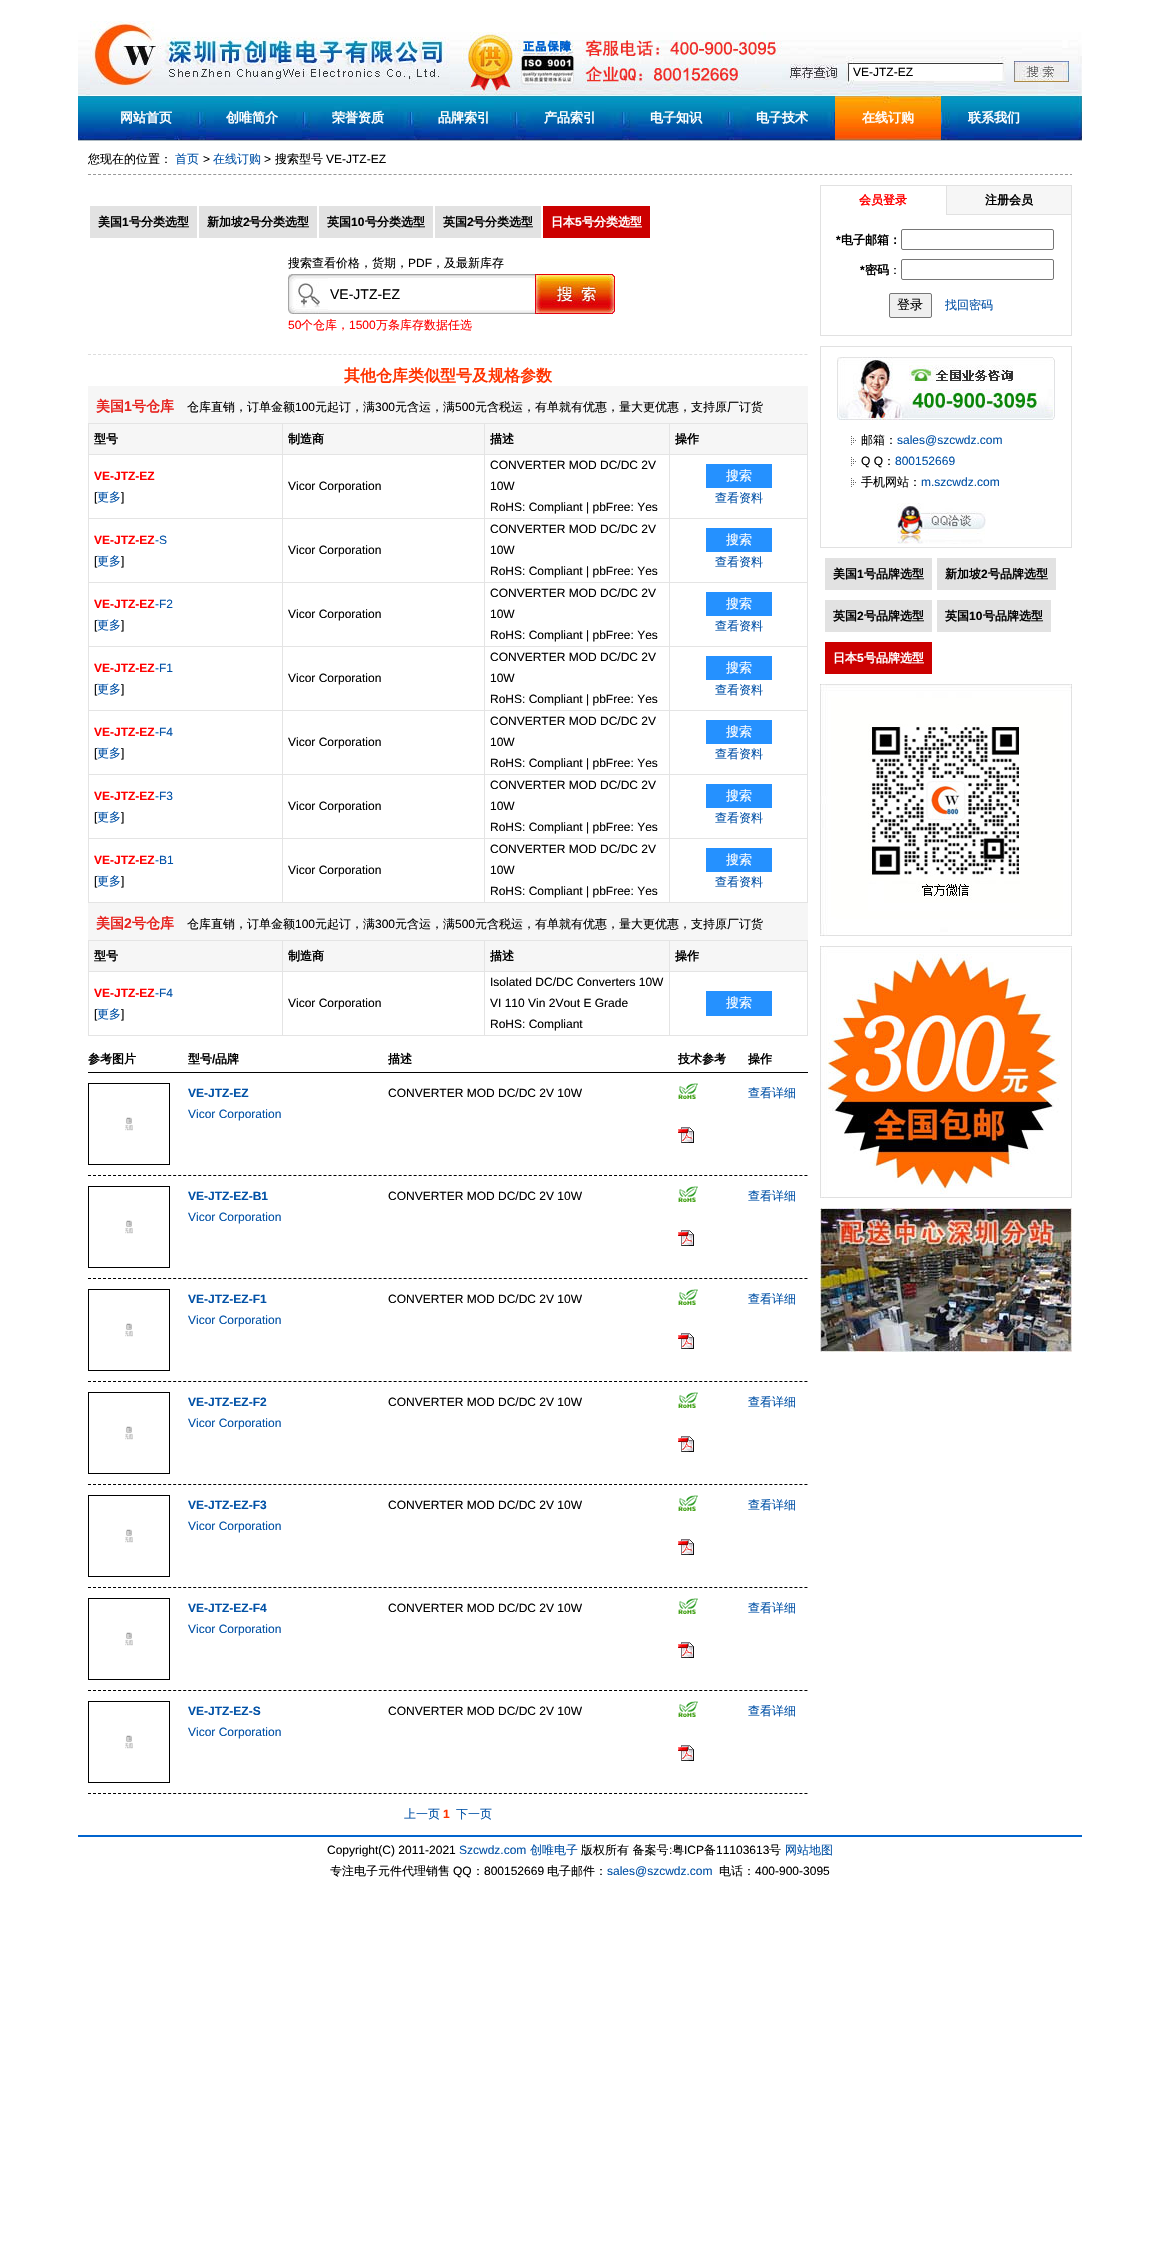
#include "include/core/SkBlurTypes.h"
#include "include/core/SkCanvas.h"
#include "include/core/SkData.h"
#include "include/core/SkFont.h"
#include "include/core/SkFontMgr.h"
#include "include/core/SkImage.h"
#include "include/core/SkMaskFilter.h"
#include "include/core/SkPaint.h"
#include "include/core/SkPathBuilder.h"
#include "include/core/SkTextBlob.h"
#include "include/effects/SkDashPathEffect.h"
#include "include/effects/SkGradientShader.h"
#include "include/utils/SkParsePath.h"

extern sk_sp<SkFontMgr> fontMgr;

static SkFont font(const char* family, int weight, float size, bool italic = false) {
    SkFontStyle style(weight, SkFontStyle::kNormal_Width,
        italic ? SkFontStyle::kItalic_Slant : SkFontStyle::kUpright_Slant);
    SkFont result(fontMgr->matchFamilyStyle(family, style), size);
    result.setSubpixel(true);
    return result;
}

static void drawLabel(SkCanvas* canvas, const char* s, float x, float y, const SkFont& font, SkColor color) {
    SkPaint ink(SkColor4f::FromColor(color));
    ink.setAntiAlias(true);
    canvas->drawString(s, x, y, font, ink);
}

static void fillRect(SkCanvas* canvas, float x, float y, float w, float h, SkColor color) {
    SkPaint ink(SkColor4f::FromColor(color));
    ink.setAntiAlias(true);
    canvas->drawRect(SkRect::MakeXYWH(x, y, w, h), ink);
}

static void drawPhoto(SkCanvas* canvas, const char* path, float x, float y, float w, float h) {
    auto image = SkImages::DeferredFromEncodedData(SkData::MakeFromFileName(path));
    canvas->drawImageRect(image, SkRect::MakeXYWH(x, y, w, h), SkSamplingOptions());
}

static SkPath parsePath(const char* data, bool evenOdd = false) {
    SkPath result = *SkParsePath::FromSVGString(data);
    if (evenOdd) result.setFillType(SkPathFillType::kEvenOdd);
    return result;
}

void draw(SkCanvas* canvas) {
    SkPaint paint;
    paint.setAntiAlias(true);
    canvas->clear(0xFFFFFFFF);
    drawPhoto(canvas, "assets/img1.png", 78, 32, 1004, 108);
    drawPhoto(canvas, "assets/img2.png", 90, 21, 71, 75);
    drawPhoto(canvas, "assets/img3.png", 161, 37, 289, 59);
    fillRect(canvas, 851, 64, 151, 16, 0xFFFFFFFF);
    SkFont font1 = font("Liberation Sans", 400, 12);
    drawLabel(canvas, "VE-JTZ-EZ", 853, 76, font1, 0xFF000000);
    drawPhoto(canvas, "assets/img4.png", 1014, 61, 55, 21);
    SkFont font2 = font("WenQuanYi Zen Hei", 700, 13);
    drawLabel(canvas, "网站首页", 120, 122, font2, 0xFFFFFFFF);
    drawLabel(canvas, "创唯简介", 226, 122, font2, 0xFFFFFFFF);
    drawLabel(canvas, "荣誉资质", 332, 122, font2, 0xFFFFFFFF);
    drawLabel(canvas, "品牌索引", 438, 122, font2, 0xFFFFFFFF);
    drawLabel(canvas, "产品索引", 544, 122, font2, 0xFFFFFFFF);
    drawLabel(canvas, "电子知识", 650, 122, font2, 0xFFFFFFFF);
    drawLabel(canvas, "电子技术", 756, 122, font2, 0xFFFFFFFF);
    drawPhoto(canvas, "assets/img5.png", 835, 96, 106, 44);
    drawLabel(canvas, "在线订购", 862, 122, font2, 0xFFFFFFFF);
    drawLabel(canvas, "联系我们", 968, 122, font2, 0xFFFFFFFF);
    fillRect(canvas, 78, 140, 1004, 1, 0xFFABB9C2);
    paint.setStroke(true);
    paint.setStrokeWidth(1);
    paint.setColor(0xFF999999);
    paint.setPathEffect(SkDashPathEffect::Make({{3, 2.01f}}, 0));
    canvas->drawPath(parsePath("M88 174.5H1072"), paint);
    paint.setPathEffect(nullptr);
    SkFont font3 = font("WenQuanYi Zen Hei", 500, 12);
    drawLabel(canvas, "您现在的位置：", 88, 163, font3, 0xFF000000);
    drawLabel(canvas, "首页", 175, 163, font3, 0xFF0151A6);
    drawLabel(canvas, ">", 203, 163, font1, 0xFF000000);
    drawLabel(canvas, "在线订购", 213, 163, font3, 0xFF0151A6);
    drawLabel(canvas, ">", 264, 163, font1, 0xFF000000);
    drawLabel(canvas, "搜索型号", 275, 163, font3, 0xFF000000);
    drawLabel(canvas, "VE-JTZ-EZ", 326, 163, font1, 0xFF000000);
    fillRect(canvas, 90, 206, 107, 32, 0xFFE2E2E2);
    SkFont font4 = font("WenQuanYi Zen Hei", 700, 12);
    drawLabel(canvas, "美国", 98, 226, font4, 0xFF000000);
    SkFont font5 = font("Liberation Sans", 700, 12);
    drawLabel(canvas, "1", 122, 226, font5, 0xFF000000);
    drawLabel(canvas, "号分类选型", 129, 226, font4, 0xFF000000);
    fillRect(canvas, 199, 206, 118, 32, 0xFFE2E2E2);
    drawLabel(canvas, "新加坡", 207, 226, font4, 0xFF000000);
    drawLabel(canvas, "2", 243, 226, font5, 0xFF000000);
    drawLabel(canvas, "号分类选型", 249, 226, font4, 0xFF000000);
    fillRect(canvas, 319, 206, 114, 32, 0xFFE2E2E2);
    drawLabel(canvas, "英国", 327, 226, font4, 0xFF000000);
    drawLabel(canvas, "10", 351, 226, font5, 0xFF000000);
    drawLabel(canvas, "号分类选型", 365, 226, font4, 0xFF000000);
    fillRect(canvas, 435, 206, 106, 32, 0xFFE2E2E2);
    drawLabel(canvas, "英国", 443, 226, font4, 0xFF000000);
    drawLabel(canvas, "2", 467, 226, font5, 0xFF000000);
    drawLabel(canvas, "号分类选型", 473, 226, font4, 0xFF000000);
    fillRect(canvas, 543, 206, 107, 32, 0xFFCC0000);
    drawLabel(canvas, "日本", 551, 226, font4, 0xFFFFFFFF);
    drawLabel(canvas, "5", 575, 226, font5, 0xFFFFFFFF);
    drawLabel(canvas, "号分类选型", 582, 226, font4, 0xFFFFFFFF);
    drawLabel(canvas, "搜索查看价格，货期，", 288, 267, font3, 0xFF000000);
    drawLabel(canvas, "PDF", 408, 267, font1, 0xFF000000);
    drawLabel(canvas, "，及最新库存", 432, 267, font3, 0xFF000000);
    drawPhoto(canvas, "assets/img6.png", 288, 274, 247, 40);
    fillRect(canvas, 328, 278, 204, 32, 0xFFFFFFFF);
    SkFont font6 = font("Liberation Sans", 400, 14);
    drawLabel(canvas, "VE-JTZ-EZ", 330, 299, font6, 0xFF000000);
    drawPhoto(canvas, "assets/img7.png", 535, 274, 80, 40);
    drawLabel(canvas, "50", 288, 329, font1, 0xFFFF0000);
    drawLabel(canvas, "个仓库，", 301, 329, font3, 0xFFFF0000);
    drawLabel(canvas, "1500", 349, 329, font1, 0xFFFF0000);
    drawLabel(canvas, "万条库存数据任选", 376, 329, font3, 0xFFFF0000);
    paint.setColor(0xFFDDDDDD);
    paint.setPathEffect(SkDashPathEffect::Make({{3, 2.01f}}, 0));
    canvas->drawPath(parsePath("M88 354.5H808"), paint);
    paint.setPathEffect(nullptr);
    SkFont font7 = font("WenQuanYi Zen Hei", 700, 16);
    drawLabel(canvas, "其他仓库类似型号及规格参数", 344, 381, font7, 0xFFFF3300);
    fillRect(canvas, 88, 386, 720, 37, 0xFFF6F6F6);
    SkFont font8 = font("WenQuanYi Zen Hei", 700, 14);
    drawLabel(canvas, "美国", 96, 411, font8, 0xFFE7231F);
    SkFont font9 = font("Liberation Sans", 700, 14);
    drawLabel(canvas, "1", 124, 411, font9, 0xFFE7231F);
    drawLabel(canvas, "号仓库", 132, 411, font8, 0xFFE7231F);
    drawLabel(canvas, "仓库直销，订单金额", 187, 411, font3, 0xFF000000);
    drawLabel(canvas, "100", 295, 411, font1, 0xFF000000);
    drawLabel(canvas, "元起订，满", 315, 411, font3, 0xFF000000);
    drawLabel(canvas, "300", 375, 411, font1, 0xFF000000);
    drawLabel(canvas, "元含运，满", 395, 411, font3, 0xFF000000);
    drawLabel(canvas, "500", 455, 411, font1, 0xFF000000);
    drawLabel(canvas, "元含税运，有单就有优惠，量大更优惠，支持原厂订货", 475, 411, font3, 0xFF000000);
    fillRect(canvas, 88, 423, 720, 480, 0xFFE4E4E4);
    fillRect(canvas, 89, 424, 193, 30, 0xFFF6F6F6);
    drawLabel(canvas, "型号", 94, 443, font4, 0xFF000000);
    fillRect(canvas, 283, 424, 201, 30, 0xFFF6F6F6);
    drawLabel(canvas, "制造商", 288, 443, font4, 0xFF000000);
    fillRect(canvas, 485, 424, 184, 30, 0xFFF6F6F6);
    drawLabel(canvas, "描述", 490, 443, font4, 0xFF000000);
    fillRect(canvas, 670, 424, 137, 30, 0xFFF6F6F6);
    drawLabel(canvas, "操作", 675, 443, font4, 0xFF000000);
    fillRect(canvas, 89, 455, 193, 63, 0xFFFFFFFF);
    drawLabel(canvas, "VE-JTZ-EZ", 94, 480, font5, 0xFFFF0000);
    drawLabel(canvas, "[", 94, 501, font1, 0xFF000000);
    drawLabel(canvas, "更多", 97, 501, font3, 0xFF0151A6);
    drawLabel(canvas, "]", 121, 501, font1, 0xFF000000);
    fillRect(canvas, 283, 455, 201, 63, 0xFFFFFFFF);
    drawLabel(canvas, "Vicor Corporation", 288, 490, font1, 0xFF000000);
    fillRect(canvas, 485, 455, 184, 63, 0xFFFFFFFF);
    drawLabel(canvas, "CONVERTER MOD DC/DC 2V", 490, 469, font1, 0xFF000000);
    drawLabel(canvas, "10W", 490, 490, font1, 0xFF000000);
    drawLabel(canvas, "RoHS: Compliant | pbFree: Yes", 490, 511, font1, 0xFF000000);
    fillRect(canvas, 670, 455, 137, 63, 0xFFFFFFFF);
    fillRect(canvas, 706, 464, 66, 24, 0xFF2591FF);
    SkFont font10 = font("WenQuanYi Zen Hei", 500, 13);
    drawLabel(canvas, "搜索", 726, 480, font10, 0xFFFFFFFF);
    drawLabel(canvas, "查看资料", 715, 502, font3, 0xFF0151A6);
    fillRect(canvas, 89, 519, 193, 63, 0xFFFFFFFF);
    drawLabel(canvas, "VE-JTZ-EZ", 94, 544, font5, 0xFFFF0000);
    drawLabel(canvas, "-S", 155, 544, font1, 0xFF0151A6);
    drawLabel(canvas, "[", 94, 565, font1, 0xFF000000);
    drawLabel(canvas, "更多", 97, 565, font3, 0xFF0151A6);
    drawLabel(canvas, "]", 121, 565, font1, 0xFF000000);
    fillRect(canvas, 283, 519, 201, 63, 0xFFFFFFFF);
    drawLabel(canvas, "Vicor Corporation", 288, 554, font1, 0xFF000000);
    fillRect(canvas, 485, 519, 184, 63, 0xFFFFFFFF);
    drawLabel(canvas, "CONVERTER MOD DC/DC 2V", 490, 533, font1, 0xFF000000);
    drawLabel(canvas, "10W", 490, 554, font1, 0xFF000000);
    drawLabel(canvas, "RoHS: Compliant | pbFree: Yes", 490, 575, font1, 0xFF000000);
    fillRect(canvas, 670, 519, 137, 63, 0xFFFFFFFF);
    fillRect(canvas, 706, 528, 66, 24, 0xFF2591FF);
    drawLabel(canvas, "搜索", 726, 544, font10, 0xFFFFFFFF);
    drawLabel(canvas, "查看资料", 715, 566, font3, 0xFF0151A6);
    fillRect(canvas, 89, 583, 193, 63, 0xFFFFFFFF);
    drawLabel(canvas, "VE-JTZ-EZ", 94, 608, font5, 0xFFFF0000);
    drawLabel(canvas, "-F2", 155, 608, font1, 0xFF0151A6);
    drawLabel(canvas, "[", 94, 629, font1, 0xFF000000);
    drawLabel(canvas, "更多", 97, 629, font3, 0xFF0151A6);
    drawLabel(canvas, "]", 121, 629, font1, 0xFF000000);
    fillRect(canvas, 283, 583, 201, 63, 0xFFFFFFFF);
    drawLabel(canvas, "Vicor Corporation", 288, 618, font1, 0xFF000000);
    fillRect(canvas, 485, 583, 184, 63, 0xFFFFFFFF);
    drawLabel(canvas, "CONVERTER MOD DC/DC 2V", 490, 597, font1, 0xFF000000);
    drawLabel(canvas, "10W", 490, 618, font1, 0xFF000000);
    drawLabel(canvas, "RoHS: Compliant | pbFree: Yes", 490, 639, font1, 0xFF000000);
    fillRect(canvas, 670, 583, 137, 63, 0xFFFFFFFF);
    fillRect(canvas, 706, 592, 66, 24, 0xFF2591FF);
    drawLabel(canvas, "搜索", 726, 608, font10, 0xFFFFFFFF);
    drawLabel(canvas, "查看资料", 715, 630, font3, 0xFF0151A6);
    fillRect(canvas, 89, 647, 193, 63, 0xFFFFFFFF);
    drawLabel(canvas, "VE-JTZ-EZ", 94, 672, font5, 0xFFFF0000);
    drawLabel(canvas, "-F1", 155, 672, font1, 0xFF0151A6);
    drawLabel(canvas, "[", 94, 693, font1, 0xFF000000);
    drawLabel(canvas, "更多", 97, 693, font3, 0xFF0151A6);
    drawLabel(canvas, "]", 121, 693, font1, 0xFF000000);
    fillRect(canvas, 283, 647, 201, 63, 0xFFFFFFFF);
    drawLabel(canvas, "Vicor Corporation", 288, 682, font1, 0xFF000000);
    fillRect(canvas, 485, 647, 184, 63, 0xFFFFFFFF);
    drawLabel(canvas, "CONVERTER MOD DC/DC 2V", 490, 661, font1, 0xFF000000);
    drawLabel(canvas, "10W", 490, 682, font1, 0xFF000000);
    drawLabel(canvas, "RoHS: Compliant | pbFree: Yes", 490, 703, font1, 0xFF000000);
    fillRect(canvas, 670, 647, 137, 63, 0xFFFFFFFF);
    fillRect(canvas, 706, 656, 66, 24, 0xFF2591FF);
    drawLabel(canvas, "搜索", 726, 672, font10, 0xFFFFFFFF);
    drawLabel(canvas, "查看资料", 715, 694, font3, 0xFF0151A6);
    fillRect(canvas, 89, 711, 193, 63, 0xFFFFFFFF);
    drawLabel(canvas, "VE-JTZ-EZ", 94, 736, font5, 0xFFFF0000);
    drawLabel(canvas, "-F4", 155, 736, font1, 0xFF0151A6);
    drawLabel(canvas, "[", 94, 757, font1, 0xFF000000);
    drawLabel(canvas, "更多", 97, 757, font3, 0xFF0151A6);
    drawLabel(canvas, "]", 121, 757, font1, 0xFF000000);
    fillRect(canvas, 283, 711, 201, 63, 0xFFFFFFFF);
    drawLabel(canvas, "Vicor Corporation", 288, 746, font1, 0xFF000000);
    fillRect(canvas, 485, 711, 184, 63, 0xFFFFFFFF);
    drawLabel(canvas, "CONVERTER MOD DC/DC 2V", 490, 725, font1, 0xFF000000);
    drawLabel(canvas, "10W", 490, 746, font1, 0xFF000000);
    drawLabel(canvas, "RoHS: Compliant | pbFree: Yes", 490, 767, font1, 0xFF000000);
    fillRect(canvas, 670, 711, 137, 63, 0xFFFFFFFF);
    fillRect(canvas, 706, 720, 66, 24, 0xFF2591FF);
    drawLabel(canvas, "搜索", 726, 736, font10, 0xFFFFFFFF);
    drawLabel(canvas, "查看资料", 715, 758, font3, 0xFF0151A6);
    fillRect(canvas, 89, 775, 193, 63, 0xFFFFFFFF);
    drawLabel(canvas, "VE-JTZ-EZ", 94, 800, font5, 0xFFFF0000);
    drawLabel(canvas, "-F3", 155, 800, font1, 0xFF0151A6);
    drawLabel(canvas, "[", 94, 821, font1, 0xFF000000);
    drawLabel(canvas, "更多", 97, 821, font3, 0xFF0151A6);
    drawLabel(canvas, "]", 121, 821, font1, 0xFF000000);
    fillRect(canvas, 283, 775, 201, 63, 0xFFFFFFFF);
    drawLabel(canvas, "Vicor Corporation", 288, 810, font1, 0xFF000000);
    fillRect(canvas, 485, 775, 184, 63, 0xFFFFFFFF);
    drawLabel(canvas, "CONVERTER MOD DC/DC 2V", 490, 789, font1, 0xFF000000);
    drawLabel(canvas, "10W", 490, 810, font1, 0xFF000000);
    drawLabel(canvas, "RoHS: Compliant | pbFree: Yes", 490, 831, font1, 0xFF000000);
    fillRect(canvas, 670, 775, 137, 63, 0xFFFFFFFF);
    fillRect(canvas, 706, 784, 66, 24, 0xFF2591FF);
    drawLabel(canvas, "搜索", 726, 800, font10, 0xFFFFFFFF);
    drawLabel(canvas, "查看资料", 715, 822, font3, 0xFF0151A6);
    fillRect(canvas, 89, 839, 193, 63, 0xFFFFFFFF);
    drawLabel(canvas, "VE-JTZ-EZ", 94, 864, font5, 0xFFFF0000);
    drawLabel(canvas, "-B1", 155, 864, font1, 0xFF0151A6);
    drawLabel(canvas, "[", 94, 885, font1, 0xFF000000);
    drawLabel(canvas, "更多", 97, 885, font3, 0xFF0151A6);
    drawLabel(canvas, "]", 121, 885, font1, 0xFF000000);
    fillRect(canvas, 283, 839, 201, 63, 0xFFFFFFFF);
    drawLabel(canvas, "Vicor Corporation", 288, 874, font1, 0xFF000000);
    fillRect(canvas, 485, 839, 184, 63, 0xFFFFFFFF);
    drawLabel(canvas, "CONVERTER MOD DC/DC 2V", 490, 853, font1, 0xFF000000);
    drawLabel(canvas, "10W", 490, 874, font1, 0xFF000000);
    drawLabel(canvas, "RoHS: Compliant | pbFree: Yes", 490, 895, font1, 0xFF000000);
    fillRect(canvas, 670, 839, 137, 63, 0xFFFFFFFF);
    fillRect(canvas, 706, 848, 66, 24, 0xFF2591FF);
    drawLabel(canvas, "搜索", 726, 864, font10, 0xFFFFFFFF);
    drawLabel(canvas, "查看资料", 715, 886, font3, 0xFF0151A6);
    fillRect(canvas, 88, 903, 720, 37, 0xFFF6F6F6);
    drawLabel(canvas, "美国", 96, 928, font8, 0xFFE7231F);
    drawLabel(canvas, "2", 124, 928, font9, 0xFFE7231F);
    drawLabel(canvas, "号仓库", 132, 928, font8, 0xFFE7231F);
    drawLabel(canvas, "仓库直销，订单金额", 187, 928, font3, 0xFF000000);
    drawLabel(canvas, "100", 295, 928, font1, 0xFF000000);
    drawLabel(canvas, "元起订，满", 315, 928, font3, 0xFF000000);
    drawLabel(canvas, "300", 375, 928, font1, 0xFF000000);
    drawLabel(canvas, "元含运，满", 395, 928, font3, 0xFF000000);
    drawLabel(canvas, "500", 455, 928, font1, 0xFF000000);
    drawLabel(canvas, "元含税运，有单就有优惠，量大更优惠，支持原厂订货", 475, 928, font3, 0xFF000000);
    fillRect(canvas, 88, 940, 720, 96, 0xFFE4E4E4);
    fillRect(canvas, 89, 941, 193, 30, 0xFFF6F6F6);
    drawLabel(canvas, "型号", 94, 960, font4, 0xFF000000);
    fillRect(canvas, 283, 941, 201, 30, 0xFFF6F6F6);
    drawLabel(canvas, "制造商", 288, 960, font4, 0xFF000000);
    fillRect(canvas, 485, 941, 184, 30, 0xFFF6F6F6);
    drawLabel(canvas, "描述", 490, 960, font4, 0xFF000000);
    fillRect(canvas, 670, 941, 137, 30, 0xFFF6F6F6);
    drawLabel(canvas, "操作", 675, 960, font4, 0xFF000000);
    fillRect(canvas, 89, 972, 193, 63, 0xFFFFFFFF);
    drawLabel(canvas, "VE-JTZ-EZ", 94, 997, font5, 0xFFFF0000);
    drawLabel(canvas, "-F4", 155, 997, font1, 0xFF0151A6);
    drawLabel(canvas, "[", 94, 1018, font1, 0xFF000000);
    drawLabel(canvas, "更多", 97, 1018, font3, 0xFF0151A6);
    drawLabel(canvas, "]", 121, 1018, font1, 0xFF000000);
    fillRect(canvas, 283, 972, 201, 63, 0xFFFFFFFF);
    drawLabel(canvas, "Vicor Corporation", 288, 1007, font1, 0xFF000000);
    fillRect(canvas, 485, 972, 184, 63, 0xFFFFFFFF);
    drawLabel(canvas, "Isolated DC/DC Converters 10W", 490, 986, font1, 0xFF000000);
    drawLabel(canvas, "VI 110 Vin 2Vout E Grade", 490, 1007, font1, 0xFF000000);
    drawLabel(canvas, "RoHS: Compliant", 490, 1028, font1, 0xFF000000);
    fillRect(canvas, 670, 972, 137, 63, 0xFFFFFFFF);
    fillRect(canvas, 706, 991, 66, 25, 0xFF2591FF);
    drawLabel(canvas, "搜索", 726, 1007, font10, 0xFFFFFFFF);
    fillRect(canvas, 88, 1072, 720, 1, 0xFF000000);
    drawLabel(canvas, "参考图片", 88, 1063, font4, 0xFF000000);
    drawLabel(canvas, "型号", 188, 1063, font4, 0xFF000000);
    drawLabel(canvas, "/", 212, 1063, font5, 0xFF000000);
    drawLabel(canvas, "品牌", 215, 1063, font4, 0xFF000000);
    drawLabel(canvas, "描述", 388, 1063, font4, 0xFF000000);
    drawLabel(canvas, "技术参考", 678, 1063, font4, 0xFF000000);
    drawLabel(canvas, "操作", 748, 1063, font4, 0xFF000000);
    paint.setColor(0xFF000000);
    paint.setPathEffect(SkDashPathEffect::Make({{3, 2.01f}}, 0));
    canvas->drawPath(parsePath("M88 1175.5H808"), paint);
    paint.setPathEffect(nullptr);
    canvas->drawRect(SkRect::MakeXYWH(88.5f, 1083.5f, 81, 81), paint);
    drawPhoto(canvas, "assets/img8.png", 125, 1117, 8, 14);
    drawLabel(canvas, "VE-JTZ-EZ", 188, 1097, font5, 0xFF0151A6);
    drawLabel(canvas, "Vicor Corporation", 188, 1118, font1, 0xFF0151A6);
    drawLabel(canvas, "CONVERTER MOD DC/DC 2V 10W", 388, 1097, font1, 0xFF000000);
    drawPhoto(canvas, "assets/img9.png", 678, 1083, 20, 16);
    drawPhoto(canvas, "assets/img10.png", 678, 1127, 16, 16);
    drawLabel(canvas, "查看详细", 748, 1097, font3, 0xFF0151A6);
    paint.setPathEffect(SkDashPathEffect::Make({{3, 2.01f}}, 0));
    canvas->drawPath(parsePath("M88 1278.5H808"), paint);
    paint.setPathEffect(nullptr);
    canvas->drawRect(SkRect::MakeXYWH(88.5f, 1186.5f, 81, 81), paint);
    drawPhoto(canvas, "assets/img8.png", 125, 1220, 8, 14);
    drawLabel(canvas, "VE-JTZ-EZ-B1", 188, 1200, font5, 0xFF0151A6);
    drawLabel(canvas, "Vicor Corporation", 188, 1221, font1, 0xFF0151A6);
    drawLabel(canvas, "CONVERTER MOD DC/DC 2V 10W", 388, 1200, font1, 0xFF000000);
    drawPhoto(canvas, "assets/img9.png", 678, 1186, 20, 16);
    drawPhoto(canvas, "assets/img10.png", 678, 1230, 16, 16);
    drawLabel(canvas, "查看详细", 748, 1200, font3, 0xFF0151A6);
    paint.setPathEffect(SkDashPathEffect::Make({{3, 2.01f}}, 0));
    canvas->drawPath(parsePath("M88 1381.5H808"), paint);
    paint.setPathEffect(nullptr);
    canvas->drawRect(SkRect::MakeXYWH(88.5f, 1289.5f, 81, 81), paint);
    drawPhoto(canvas, "assets/img8.png", 125, 1323, 8, 14);
    drawLabel(canvas, "VE-JTZ-EZ-F1", 188, 1303, font5, 0xFF0151A6);
    drawLabel(canvas, "Vicor Corporation", 188, 1324, font1, 0xFF0151A6);
    drawLabel(canvas, "CONVERTER MOD DC/DC 2V 10W", 388, 1303, font1, 0xFF000000);
    drawPhoto(canvas, "assets/img9.png", 678, 1289, 20, 16);
    drawPhoto(canvas, "assets/img10.png", 678, 1333, 16, 16);
    drawLabel(canvas, "查看详细", 748, 1303, font3, 0xFF0151A6);
    paint.setPathEffect(SkDashPathEffect::Make({{3, 2.01f}}, 0));
    canvas->drawPath(parsePath("M88 1484.5H808"), paint);
    paint.setPathEffect(nullptr);
    canvas->drawRect(SkRect::MakeXYWH(88.5f, 1392.5f, 81, 81), paint);
    drawPhoto(canvas, "assets/img8.png", 125, 1426, 8, 14);
    drawLabel(canvas, "VE-JTZ-EZ-F2", 188, 1406, font5, 0xFF0151A6);
    drawLabel(canvas, "Vicor Corporation", 188, 1427, font1, 0xFF0151A6);
    drawLabel(canvas, "CONVERTER MOD DC/DC 2V 10W", 388, 1406, font1, 0xFF000000);
    drawPhoto(canvas, "assets/img9.png", 678, 1392, 20, 16);
    drawPhoto(canvas, "assets/img10.png", 678, 1436, 16, 16);
    drawLabel(canvas, "查看详细", 748, 1406, font3, 0xFF0151A6);
    paint.setPathEffect(SkDashPathEffect::Make({{3, 2.01f}}, 0));
    canvas->drawPath(parsePath("M88 1587.5H808"), paint);
    paint.setPathEffect(nullptr);
    canvas->drawRect(SkRect::MakeXYWH(88.5f, 1495.5f, 81, 81), paint);
    drawPhoto(canvas, "assets/img8.png", 125, 1529, 8, 14);
    drawLabel(canvas, "VE-JTZ-EZ-F3", 188, 1509, font5, 0xFF0151A6);
    drawLabel(canvas, "Vicor Corporation", 188, 1530, font1, 0xFF0151A6);
    drawLabel(canvas, "CONVERTER MOD DC/DC 2V 10W", 388, 1509, font1, 0xFF000000);
    drawPhoto(canvas, "assets/img9.png", 678, 1495, 20, 16);
    drawPhoto(canvas, "assets/img10.png", 678, 1539, 16, 16);
    drawLabel(canvas, "查看详细", 748, 1509, font3, 0xFF0151A6);
    paint.setPathEffect(SkDashPathEffect::Make({{3, 2.01f}}, 0));
    canvas->drawPath(parsePath("M88 1690.5H808"), paint);
    paint.setPathEffect(nullptr);
    canvas->drawRect(SkRect::MakeXYWH(88.5f, 1598.5f, 81, 81), paint);
    drawPhoto(canvas, "assets/img8.png", 125, 1632, 8, 14);
    drawLabel(canvas, "VE-JTZ-EZ-F4", 188, 1612, font5, 0xFF0151A6);
    drawLabel(canvas, "Vicor Corporation", 188, 1633, font1, 0xFF0151A6);
    drawLabel(canvas, "CONVERTER MOD DC/DC 2V 10W", 388, 1612, font1, 0xFF000000);
    drawPhoto(canvas, "assets/img9.png", 678, 1598, 20, 16);
    drawPhoto(canvas, "assets/img10.png", 678, 1642, 16, 16);
    drawLabel(canvas, "查看详细", 748, 1612, font3, 0xFF0151A6);
    paint.setPathEffect(SkDashPathEffect::Make({{3, 2.01f}}, 0));
    canvas->drawPath(parsePath("M88 1793.5H808"), paint);
    paint.setPathEffect(nullptr);
    canvas->drawRect(SkRect::MakeXYWH(88.5f, 1701.5f, 81, 81), paint);
    drawPhoto(canvas, "assets/img8.png", 125, 1735, 8, 14);
    drawLabel(canvas, "VE-JTZ-EZ-S", 188, 1715, font5, 0xFF0151A6);
    drawLabel(canvas, "Vicor Corporation", 188, 1736, font1, 0xFF0151A6);
    drawLabel(canvas, "CONVERTER MOD DC/DC 2V 10W", 388, 1715, font1, 0xFF000000);
    drawPhoto(canvas, "assets/img9.png", 678, 1701, 20, 16);
    drawPhoto(canvas, "assets/img10.png", 678, 1745, 16, 16);
    drawLabel(canvas, "查看详细", 748, 1715, font3, 0xFF0151A6);
    drawLabel(canvas, "上一页", 404, 1818, font3, 0xFF0151A6);
    drawLabel(canvas, "1", 443, 1818, font5, 0xFFFF3300);
    drawLabel(canvas, "下一页", 456, 1818, font3, 0xFF0151A6);
    paint.setColor(0xFFE1E1E1);
    canvas->drawRect(SkRect::MakeXYWH(820.5f, 185.5f, 251, 150), paint);
    fillRect(canvas, 946, 186, 1, 29, 0xFFE1E1E1);
    drawLabel(canvas, "会员登录", 859, 204, font4, 0xFFFF0000);
    fillRect(canvas, 947, 186, 124, 28, 0xFFF6F6F6);
    fillRect(canvas, 947, 214, 124, 1, 0xFFE1E1E1);
    drawLabel(canvas, "注册会员", 985, 204, font4, 0xFF000000);
    drawLabel(canvas, "*", 836, 244, font5, 0xFF000000);
    drawLabel(canvas, "电子邮箱：", 841, 244, font4, 0xFF000000);
    paint.setColor(0xFF767676);
    canvas->drawRoundRect(SkRect::MakeXYWH(901.5f, 229.5f, 152, 20), 1.5f, 1.5f, paint);
    drawLabel(canvas, "*", 860, 274, font5, 0xFF000000);
    drawLabel(canvas, "密码", 865, 274, font4, 0xFF000000);
    drawLabel(canvas, "：", 889, 274, font3, 0xFF000000);
    canvas->drawRoundRect(SkRect::MakeXYWH(901.5f, 259.5f, 152, 20), 1.5f, 1.5f, paint);
    paint.setStroke(false);
    paint.setColor(0xFFEFEFEF);
    canvas->drawRoundRect(SkRect::MakeXYWH(889.5f, 293.5f, 42, 24), 1.5f, 1.5f, paint);
    paint.setStroke(true);
    paint.setColor(0xFF767676);
    canvas->drawRoundRect(SkRect::MakeXYWH(889.5f, 293.5f, 42, 24), 1.5f, 1.5f, paint);
    drawLabel(canvas, "登录", 897, 309, font10, 0xFF000000);
    drawLabel(canvas, "找回密码", 945, 309, font3, 0xFF0151A6);
    paint.setColor(0xFFE1E1E1);
    canvas->drawRect(SkRect::MakeXYWH(820.5f, 346.5f, 251, 201), paint);
    drawPhoto(canvas, "assets/img11.png", 837, 357, 218, 63);
    drawPhoto(canvas, "assets/img12.png", 851, 436, 5, 9);
    drawLabel(canvas, "邮箱：", 861, 444, font3, 0xFF000000);
    drawLabel(canvas, "sales@szcwdz.com", 897, 444, font1, 0xFF0151A6);
    drawPhoto(canvas, "assets/img12.png", 851, 457, 5, 9);
    drawLabel(canvas, "Q Q", 861, 465, font1, 0xFF000000);
    drawLabel(canvas, "：", 883, 465, font3, 0xFF000000);
    drawLabel(canvas, "800152669", 895, 465, font1, 0xFF0151A6);
    drawPhoto(canvas, "assets/img12.png", 851, 478, 5, 9);
    drawLabel(canvas, "手机网站：", 861, 486, font3, 0xFF000000);
    drawLabel(canvas, "m.szcwdz.com", 921, 486, font1, 0xFF0151A6);
    drawPhoto(canvas, "assets/img13.png", 897, 503, 89, 41);
    fillRect(canvas, 825, 558, 107, 32, 0xFFE2E2E2);
    drawLabel(canvas, "美国", 833, 578, font4, 0xFF000000);
    drawLabel(canvas, "1", 857, 578, font5, 0xFF000000);
    drawLabel(canvas, "号品牌选型", 864, 578, font4, 0xFF000000);
    fillRect(canvas, 937, 558, 119, 32, 0xFFE2E2E2);
    drawLabel(canvas, "新加坡", 945, 578, font4, 0xFF000000);
    drawLabel(canvas, "2", 981, 578, font5, 0xFF000000);
    drawLabel(canvas, "号品牌选型", 988, 578, font4, 0xFF000000);
    fillRect(canvas, 825, 600, 107, 32, 0xFFE2E2E2);
    drawLabel(canvas, "英国", 833, 620, font4, 0xFF000000);
    drawLabel(canvas, "2", 857, 620, font5, 0xFF000000);
    drawLabel(canvas, "号品牌选型", 864, 620, font4, 0xFF000000);
    fillRect(canvas, 937, 600, 114, 32, 0xFFE2E2E2);
    drawLabel(canvas, "英国", 945, 620, font4, 0xFF000000);
    drawLabel(canvas, "10", 969, 620, font5, 0xFF000000);
    drawLabel(canvas, "号品牌选型", 983, 620, font4, 0xFF000000);
    fillRect(canvas, 825, 642, 107, 32, 0xFFCC0000);
    drawLabel(canvas, "日本", 833, 662, font4, 0xFFFFFFFF);
    drawLabel(canvas, "5", 857, 662, font5, 0xFFFFFFFF);
    drawLabel(canvas, "号品牌选型", 864, 662, font4, 0xFFFFFFFF);
    drawPhoto(canvas, "assets/img14.png", 820, 684, 252, 252);
    drawPhoto(canvas, "assets/img15.png", 820, 946, 252, 252);
    drawPhoto(canvas, "assets/img16.png", 820, 1208, 252, 144);
    fillRect(canvas, 78, 1835, 1004, 2, 0xFF0064CE);
    drawLabel(canvas, "Copyright(C) 2011-2021", 327, 1854, font1, 0xFF000000);
    drawLabel(canvas, "Szcwdz.com", 459, 1854, font1, 0xFF0151A6);
    drawLabel(canvas, "创唯电子", 530, 1854, font3, 0xFF0151A6);
    drawLabel(canvas, "版权所有 备案号 粤", 581, 1854, font3, 0xFF000000);
    drawLabel(canvas, "ICP", 684, 1854, font1, 0xFF000000);
    drawLabel(canvas, "备", 704, 1854, font3, 0xFF000000);
    drawLabel(canvas, "11103613", 716, 1854, font1, 0xFF000000);
    drawLabel(canvas, "号", 769, 1854, font3, 0xFF000000);
    drawLabel(canvas, "网站地图", 785, 1854, font3, 0xFF0151A6);
    drawLabel(canvas, ":", 669, 1854, font1, 0xFF000000);
    drawLabel(canvas, "专注电子元件代理销售", 330, 1875, font3, 0xFF000000);
    drawLabel(canvas, "QQ", 453, 1875, font1, 0xFF000000);
    drawLabel(canvas, "：", 472, 1875, font3, 0xFF000000);
    drawLabel(canvas, "800152669", 484, 1875, font1, 0xFF000000);
    drawLabel(canvas, "电子邮件：", 547, 1875, font3, 0xFF000000);
    drawLabel(canvas, "sales@szcwdz.com", 607, 1875, font1, 0xFF0151A6);
    drawLabel(canvas, "电话：", 719, 1875, font3, 0xFF000000);
    drawLabel(canvas, "400-900-3095", 755, 1875, font1, 0xFF000000);
}
